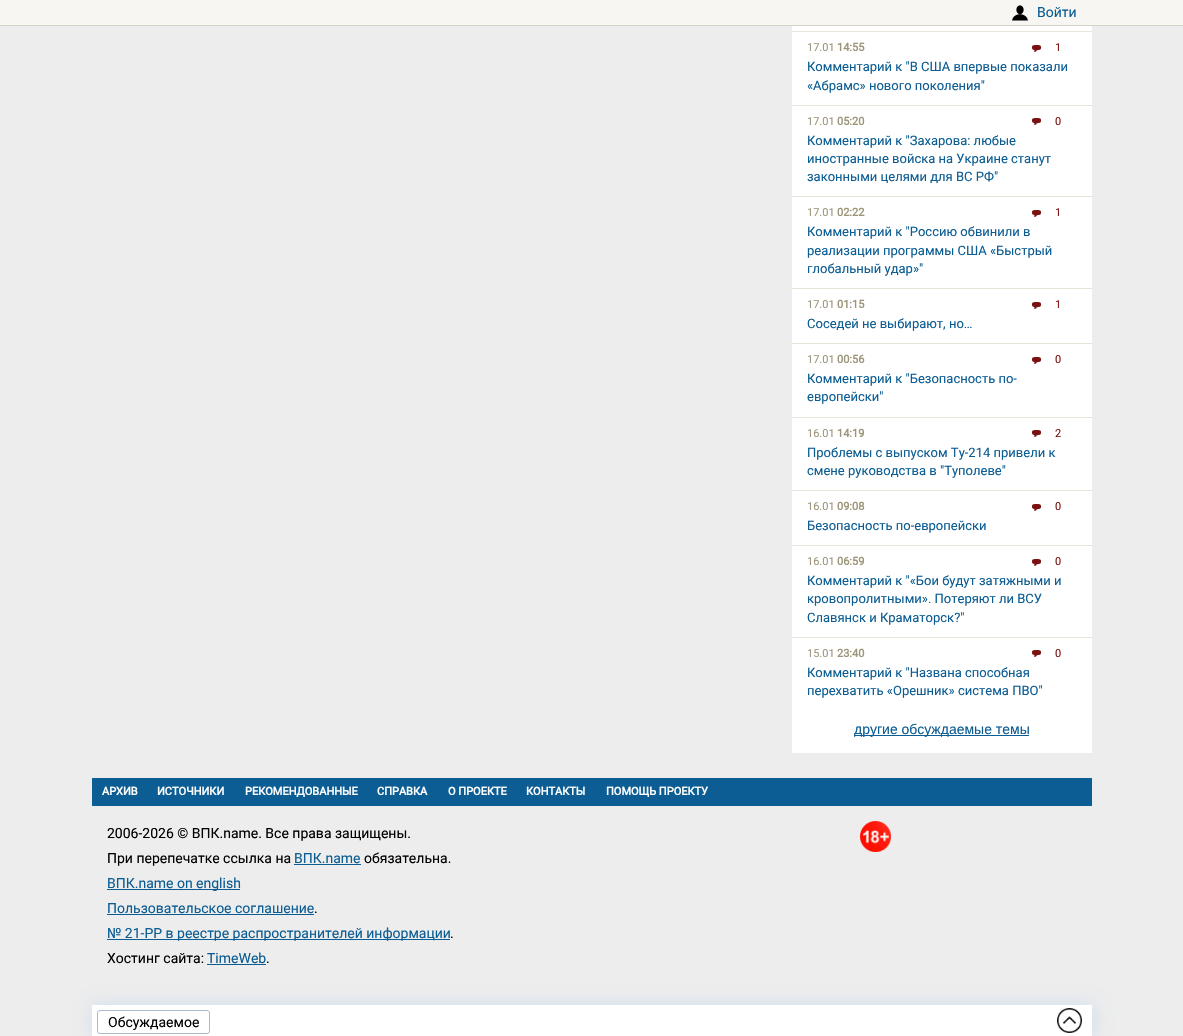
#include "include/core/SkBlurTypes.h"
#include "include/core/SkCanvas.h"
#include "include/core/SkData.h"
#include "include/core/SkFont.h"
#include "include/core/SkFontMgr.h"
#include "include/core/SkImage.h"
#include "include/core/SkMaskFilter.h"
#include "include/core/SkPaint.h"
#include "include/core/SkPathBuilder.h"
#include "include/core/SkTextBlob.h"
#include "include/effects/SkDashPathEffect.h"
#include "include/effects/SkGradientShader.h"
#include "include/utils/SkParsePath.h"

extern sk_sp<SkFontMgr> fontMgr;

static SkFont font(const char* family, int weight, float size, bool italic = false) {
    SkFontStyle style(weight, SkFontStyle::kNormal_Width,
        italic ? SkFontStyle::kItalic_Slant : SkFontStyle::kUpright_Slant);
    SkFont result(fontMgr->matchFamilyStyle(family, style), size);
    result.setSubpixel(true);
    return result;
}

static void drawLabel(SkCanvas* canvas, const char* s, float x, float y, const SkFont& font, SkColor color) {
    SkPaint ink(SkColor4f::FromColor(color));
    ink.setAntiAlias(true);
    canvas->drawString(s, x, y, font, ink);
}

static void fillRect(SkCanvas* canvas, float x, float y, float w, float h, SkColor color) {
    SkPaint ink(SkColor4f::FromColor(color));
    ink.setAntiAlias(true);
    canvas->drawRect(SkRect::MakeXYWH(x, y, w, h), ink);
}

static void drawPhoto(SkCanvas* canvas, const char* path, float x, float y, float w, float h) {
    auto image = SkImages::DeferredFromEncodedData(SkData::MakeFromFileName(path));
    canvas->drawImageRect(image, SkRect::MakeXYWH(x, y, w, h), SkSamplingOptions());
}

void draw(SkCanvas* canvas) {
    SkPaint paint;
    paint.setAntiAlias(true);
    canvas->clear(0xFFEDEDED);
    fillRect(canvas, 0, 0, 1183, 25, 0xFFF7F6F2);
    fillRect(canvas, 0, 25, 1183, 1, 0xFFD5D2C6);
    drawPhoto(canvas, "assets/img1.png", 1012, 5, 16, 16);
    SkFont font1 = font("Roboto", 400, 14);
    drawLabel(canvas, "Войти", 1037, 17, font1, 0xFF0C5D93);
    fillRect(canvas, 792, 26, 300, 727, 0xFFFFFFFF);
    fillRect(canvas, 792, 31, 300, 1, 0xFFE7E5D8);
    fillRect(canvas, 792, 105, 300, 1, 0xFFE7E5D8);
    SkFont font2 = font("Roboto", 400, 11);
    drawLabel(canvas, "17.01", 807, 51, font2, 0xFF9C9579);
    SkFont font3 = font("Roboto", 700, 11);
    drawLabel(canvas, "14:55", 837, 51, font3, 0xFF9C9579);
    drawPhoto(canvas, "assets/img2.png", 1032, 45, 9, 7);
    drawLabel(canvas, "1", 1055, 51, font2, 0xFF7A1110);
    SkFont font4 = font("Roboto", 400, 13);
    drawLabel(canvas, "Комментарий к \"В США впервые показали", 807, 71, font4, 0xFF0C5D93);
    drawLabel(canvas, "«Абрамс» нового поколения\"", 807, 90, font4, 0xFF0C5D93);
    fillRect(canvas, 792, 196, 300, 1, 0xFFE7E5D8);
    drawLabel(canvas, "17.01", 807, 125, font2, 0xFF9C9579);
    drawLabel(canvas, "05:20", 837, 125, font3, 0xFF9C9579);
    drawPhoto(canvas, "assets/img2.png", 1032, 118, 9, 7);
    drawLabel(canvas, "0", 1055, 125, font2, 0xFF7A1110);
    drawLabel(canvas, "Комментарий к \"Захарова: любые", 807, 145, font4, 0xFF0C5D93);
    drawLabel(canvas, "иностранные войска на Украине станут", 807, 163, font4, 0xFF0C5D93);
    drawLabel(canvas, "законными целями для ВС РФ\"", 807, 181, font4, 0xFF0C5D93);
    fillRect(canvas, 792, 288, 300, 1, 0xFFE7E5D8);
    drawLabel(canvas, "17.01", 807, 216, font2, 0xFF9C9579);
    drawLabel(canvas, "02:22", 837, 216, font3, 0xFF9C9579);
    drawPhoto(canvas, "assets/img2.png", 1032, 210, 9, 7);
    drawLabel(canvas, "1", 1055, 216, font2, 0xFF7A1110);
    drawLabel(canvas, "Комментарий к \"Россию обвинили в", 807, 236, font4, 0xFF0C5D93);
    drawLabel(canvas, "реализации программы США «Быстрый", 807, 255, font4, 0xFF0C5D93);
    drawLabel(canvas, "глобальный удар»\"", 807, 273, font4, 0xFF0C5D93);
    fillRect(canvas, 792, 343, 300, 1, 0xFFE7E5D8);
    drawLabel(canvas, "17.01", 807, 308, font2, 0xFF9C9579);
    drawLabel(canvas, "01:15", 837, 308, font3, 0xFF9C9579);
    drawPhoto(canvas, "assets/img2.png", 1032, 302, 9, 7);
    drawLabel(canvas, "1", 1055, 308, font2, 0xFF7A1110);
    drawLabel(canvas, "Соседей не выбирают, но…", 807, 328, font4, 0xFF0C5D93);
    fillRect(canvas, 792, 417, 300, 1, 0xFFE7E5D8);
    drawLabel(canvas, "17.01", 807, 363, font2, 0xFF9C9579);
    drawLabel(canvas, "00:56", 837, 363, font3, 0xFF9C9579);
    drawPhoto(canvas, "assets/img2.png", 1032, 357, 9, 7);
    drawLabel(canvas, "0", 1055, 363, font2, 0xFF7A1110);
    drawLabel(canvas, "Комментарий к \"Безопасность по-", 807, 383, font4, 0xFF0C5D93);
    drawLabel(canvas, "европейски\"", 807, 401, font4, 0xFF0C5D93);
    fillRect(canvas, 792, 490, 300, 1, 0xFFE7E5D8);
    drawLabel(canvas, "16.01", 807, 437, font2, 0xFF9C9579);
    drawLabel(canvas, "14:19", 837, 437, font3, 0xFF9C9579);
    drawPhoto(canvas, "assets/img2.png", 1032, 430, 9, 7);
    drawLabel(canvas, "2", 1055, 437, font2, 0xFF7A1110);
    drawLabel(canvas, "Проблемы с выпуском Ту-214 привели к", 807, 457, font4, 0xFF0C5D93);
    drawLabel(canvas, "смене руководства в \"Туполеве\"", 807, 475, font4, 0xFF0C5D93);
    fillRect(canvas, 792, 545, 300, 1, 0xFFE7E5D8);
    drawLabel(canvas, "16.01", 807, 510, font2, 0xFF9C9579);
    drawLabel(canvas, "09:08", 837, 510, font3, 0xFF9C9579);
    drawPhoto(canvas, "assets/img2.png", 1032, 504, 9, 7);
    drawLabel(canvas, "0", 1055, 510, font2, 0xFF7A1110);
    drawLabel(canvas, "Безопасность по-европейски", 807, 530, font4, 0xFF0C5D93);
    fillRect(canvas, 792, 637, 300, 1, 0xFFE7E5D8);
    drawLabel(canvas, "16.01", 807, 565, font2, 0xFF9C9579);
    drawLabel(canvas, "06:59", 837, 565, font3, 0xFF9C9579);
    drawPhoto(canvas, "assets/img2.png", 1032, 559, 9, 7);
    drawLabel(canvas, "0", 1055, 565, font2, 0xFF7A1110);
    drawLabel(canvas, "Комментарий к \"«Бои будут затяжными и", 807, 585, font4, 0xFF0C5D93);
    drawLabel(canvas, "кровопролитными». Потеряют ли ВСУ", 807, 603, font4, 0xFF0C5D93);
    drawLabel(canvas, "Славянск и Краматорск?\"", 807, 622, font4, 0xFF0C5D93);
    drawLabel(canvas, "15.01", 807, 657, font2, 0xFF9C9579);
    drawLabel(canvas, "23:40", 837, 657, font3, 0xFF9C9579);
    drawPhoto(canvas, "assets/img2.png", 1032, 650, 9, 7);
    drawLabel(canvas, "0", 1055, 657, font2, 0xFF7A1110);
    drawLabel(canvas, "Комментарий к \"Названа способная", 807, 677, font4, 0xFF0C5D93);
    drawLabel(canvas, "перехватить «Орешник» система ПВО\"", 807, 695, font4, 0xFF0C5D93);
    fillRect(canvas, 854, 735, 175, 1, 0xFF0C5D93);
    SkFont font5 = font("Liberation Sans", 400, 14);
    drawLabel(canvas, "другие обсуждаемые темы", 854, 734, font5, 0xFF0C5D93);
    fillRect(canvas, 92, 778, 1000, 28, 0xFF0C5D93);
    drawLabel(canvas, "АРХИВ", 102, 795, font3, 0xFFFFFFFF);
    drawLabel(canvas, "ИСТОЧНИКИ", 157, 795, font3, 0xFFFFFFFF);
    drawLabel(canvas, "РЕКОМЕНДОВАННЫЕ", 245, 795, font3, 0xFFFFFFFF);
    drawLabel(canvas, "СПРАВКА", 377, 795, font3, 0xFFFFFFFF);
    drawLabel(canvas, "О ПРОЕКТЕ", 448, 795, font3, 0xFFFFFFFF);
    drawLabel(canvas, "КОНТАКТЫ", 526, 795, font3, 0xFFFFFFFF);
    drawLabel(canvas, "ПОМОЩЬ ПРОЕКТУ", 606, 795, font3, 0xFFFFFFFF);
    drawLabel(canvas, "2006-2026 © ВПК.name. Все права защищены.", 107, 838, font1, 0xFF000000);
    drawLabel(canvas, "При перепечатке ссылка на", 107, 863, font1, 0xFF000000);
    drawLabel(canvas, "ВПК.name", 294, 863, font1, 0xFF0C5D93);
    fillRect(canvas, 294, 864, 67, 1, 0xFF0C5D93);
    drawLabel(canvas, "обязательна.", 364, 863, font1, 0xFF000000);
    fillRect(canvas, 107, 889, 133, 1, 0xFF0C5D93);
    drawLabel(canvas, "ВПК.name on english", 107, 888, font1, 0xFF0C5D93);
    drawLabel(canvas, "Пользовательское соглашение", 107, 913, font1, 0xFF0C5D93);
    fillRect(canvas, 107, 914, 207, 1, 0xFF0C5D93);
    drawLabel(canvas, ".", 314, 913, font1, 0xFF000000);
    fillRect(canvas, 107, 939, 343, 1, 0xFF0C5D93);
    drawLabel(canvas, "№ 21-PP в реестре распространителей информации", 107, 938, font1, 0xFF0C5D93);
    drawLabel(canvas, ".", 450, 938, font1, 0xFF000000);
    drawLabel(canvas, "Хостинг сайта:", 107, 963, font1, 0xFF000000);
    drawLabel(canvas, "TimeWeb", 207, 963, font1, 0xFF0C5D93);
    fillRect(canvas, 207, 964, 59, 1, 0xFF0C5D93);
    drawLabel(canvas, ".", 266, 963, font1, 0xFF000000);
    drawPhoto(canvas, "assets/img3.png", 860, 821, 31, 31);
    paint.setColor(0xFFCCDDEE);
    paint.setMaskFilter(SkMaskFilter::MakeBlur(kNormal_SkBlurStyle, 10));
    canvas->drawRect(SkRect::MakeXYWH(93, 1006, 1000, 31), paint);
    paint.setMaskFilter(nullptr);
    fillRect(canvas, 92, 1005, 1000, 31, 0xFFFFFFFF);
    paint.setStroke(true);
    paint.setStrokeWidth(1);
    paint.setColor(0xFFAABBCC);
    canvas->drawRoundRect(SkRect::MakeXYWH(97.5f, 1010.5f, 112, 23), 2.5f, 2.5f, paint);
    drawLabel(canvas, "Обсуждаемое", 108, 1027, font1, 0xFF000000);
    drawPhoto(canvas, "assets/img4.png", 1057, 1008, 25, 25);
}
